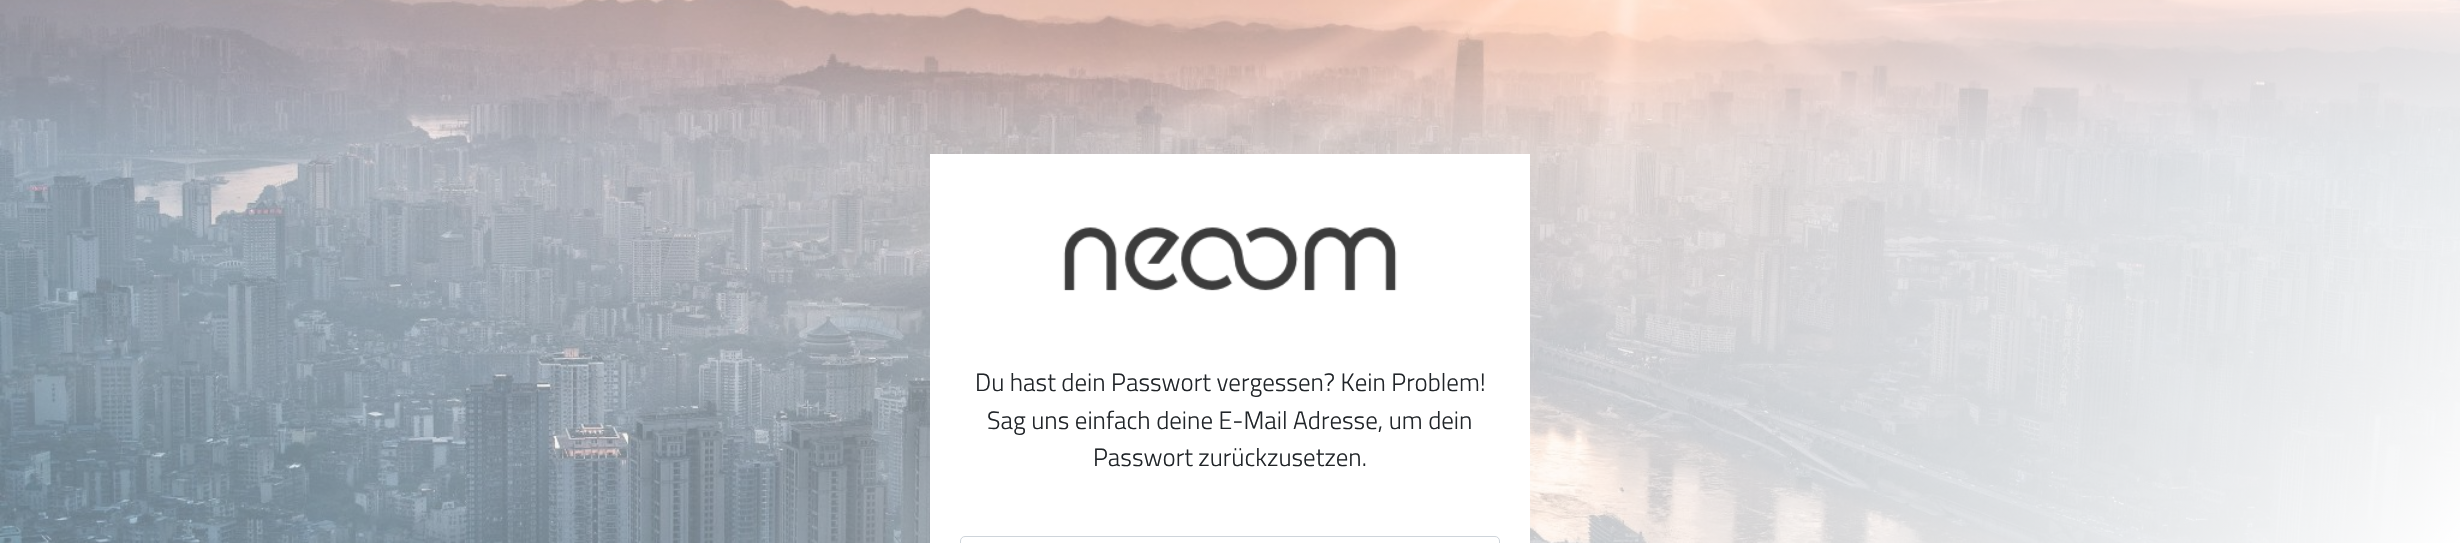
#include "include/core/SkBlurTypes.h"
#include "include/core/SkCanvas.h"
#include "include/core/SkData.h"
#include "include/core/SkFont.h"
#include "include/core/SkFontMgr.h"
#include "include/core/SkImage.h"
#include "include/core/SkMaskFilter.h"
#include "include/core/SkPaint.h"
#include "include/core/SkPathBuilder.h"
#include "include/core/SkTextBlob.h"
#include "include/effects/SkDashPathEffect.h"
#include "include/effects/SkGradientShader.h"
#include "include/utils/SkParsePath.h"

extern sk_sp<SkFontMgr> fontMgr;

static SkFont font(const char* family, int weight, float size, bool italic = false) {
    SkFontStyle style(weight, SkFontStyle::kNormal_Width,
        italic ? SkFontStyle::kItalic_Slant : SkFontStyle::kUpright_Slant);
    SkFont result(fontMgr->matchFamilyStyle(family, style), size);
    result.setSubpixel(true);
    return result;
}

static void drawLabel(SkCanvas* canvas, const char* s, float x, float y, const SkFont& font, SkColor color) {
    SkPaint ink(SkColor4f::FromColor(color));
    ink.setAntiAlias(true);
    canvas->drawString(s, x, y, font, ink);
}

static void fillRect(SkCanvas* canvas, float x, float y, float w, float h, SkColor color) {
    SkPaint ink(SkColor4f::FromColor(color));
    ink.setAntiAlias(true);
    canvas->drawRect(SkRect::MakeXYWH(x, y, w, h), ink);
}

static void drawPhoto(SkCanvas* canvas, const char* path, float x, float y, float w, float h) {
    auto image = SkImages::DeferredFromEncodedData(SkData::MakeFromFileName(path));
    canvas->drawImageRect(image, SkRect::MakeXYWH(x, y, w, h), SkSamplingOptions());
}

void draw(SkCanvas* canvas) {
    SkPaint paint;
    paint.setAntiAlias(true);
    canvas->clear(0xFFFFFFFF);
    drawPhoto(canvas, "assets/img1.png", 0, 0, 2460, 543);
    fillRect(canvas, 930, 154, 600, 389, 0xFFFFFFFF);
    drawPhoto(canvas, "assets/img2.png", 1063, 227, 334, 64);
    SkFont font1 = font("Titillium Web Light", 300, 25);
    drawLabel(canvas, "Du hast dein Passwort vergessen? Kein Problem!", 975, 391, font1, 0xFF212529);
    drawLabel(canvas, "Sag uns einfach deine E-Mail Adresse, um dein", 987, 429, font1, 0xFF212529);
    drawLabel(canvas, "Passwort zurückzusetzen.", 1093, 466, font1, 0xFF212529);
    paint.setStroke(true);
    paint.setStrokeWidth(1);
    paint.setColor(0xFFCED4DA);
    canvas->drawRoundRect(SkRect::MakeXYWH(960.5f, 536.5f, 539, 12), 4.5f, 4.5f, paint);
}
